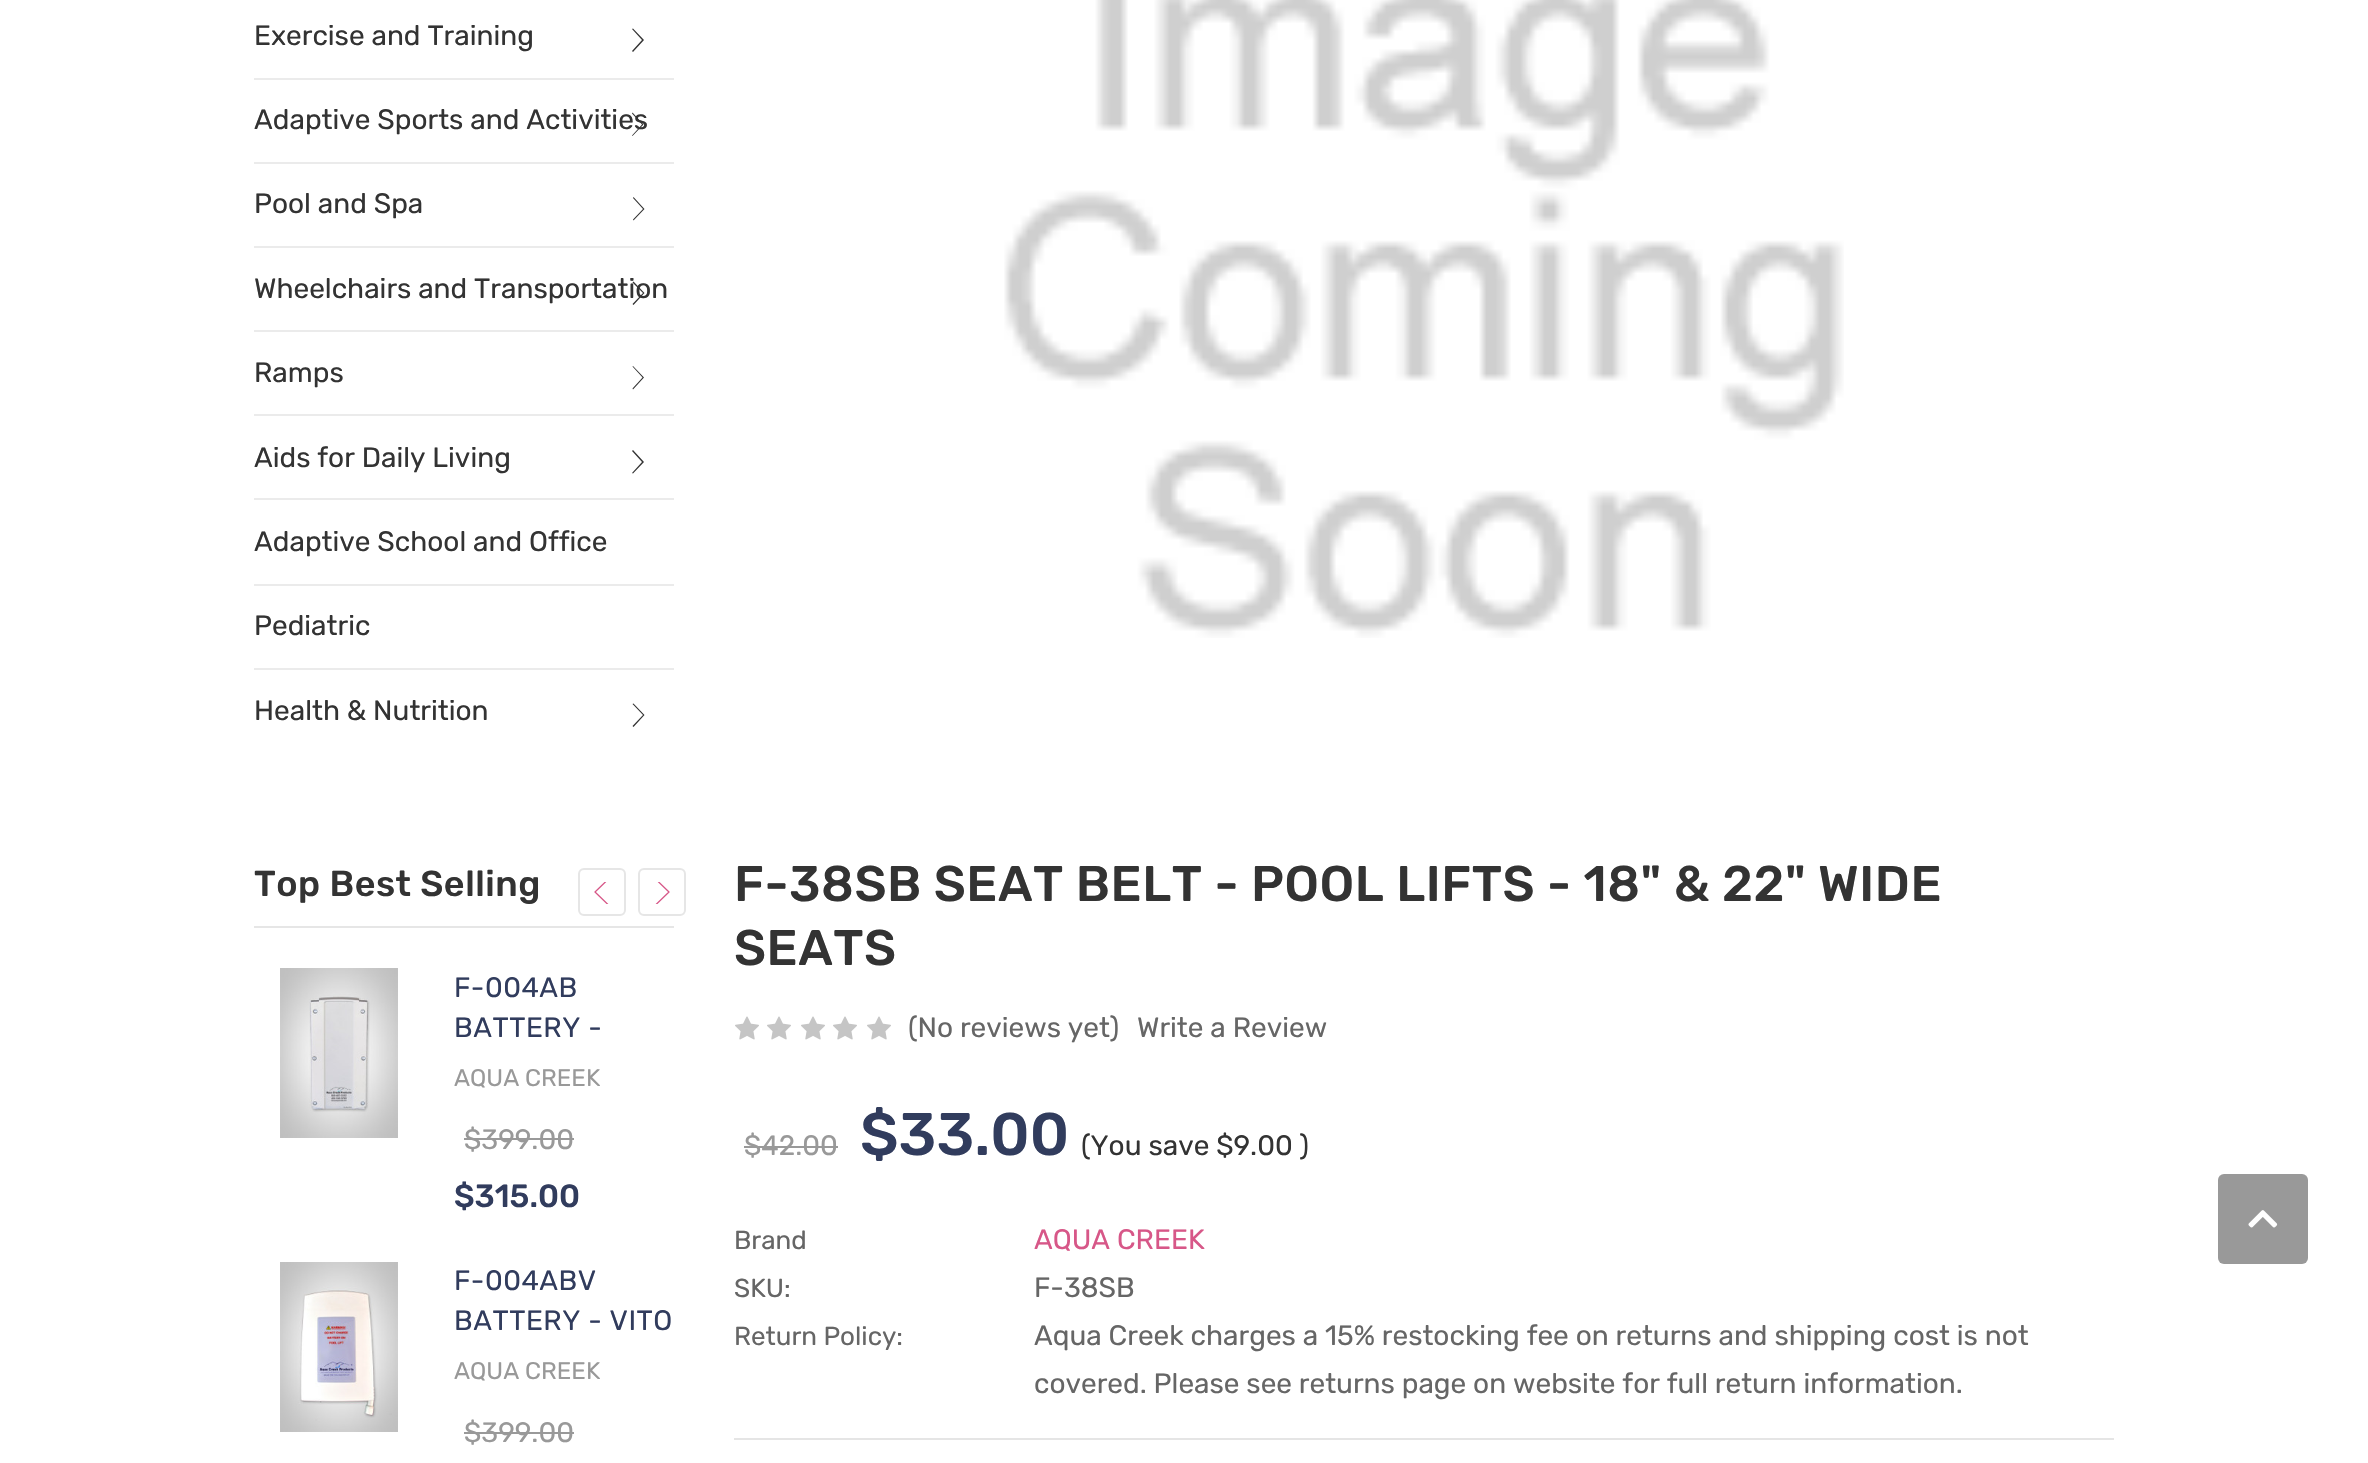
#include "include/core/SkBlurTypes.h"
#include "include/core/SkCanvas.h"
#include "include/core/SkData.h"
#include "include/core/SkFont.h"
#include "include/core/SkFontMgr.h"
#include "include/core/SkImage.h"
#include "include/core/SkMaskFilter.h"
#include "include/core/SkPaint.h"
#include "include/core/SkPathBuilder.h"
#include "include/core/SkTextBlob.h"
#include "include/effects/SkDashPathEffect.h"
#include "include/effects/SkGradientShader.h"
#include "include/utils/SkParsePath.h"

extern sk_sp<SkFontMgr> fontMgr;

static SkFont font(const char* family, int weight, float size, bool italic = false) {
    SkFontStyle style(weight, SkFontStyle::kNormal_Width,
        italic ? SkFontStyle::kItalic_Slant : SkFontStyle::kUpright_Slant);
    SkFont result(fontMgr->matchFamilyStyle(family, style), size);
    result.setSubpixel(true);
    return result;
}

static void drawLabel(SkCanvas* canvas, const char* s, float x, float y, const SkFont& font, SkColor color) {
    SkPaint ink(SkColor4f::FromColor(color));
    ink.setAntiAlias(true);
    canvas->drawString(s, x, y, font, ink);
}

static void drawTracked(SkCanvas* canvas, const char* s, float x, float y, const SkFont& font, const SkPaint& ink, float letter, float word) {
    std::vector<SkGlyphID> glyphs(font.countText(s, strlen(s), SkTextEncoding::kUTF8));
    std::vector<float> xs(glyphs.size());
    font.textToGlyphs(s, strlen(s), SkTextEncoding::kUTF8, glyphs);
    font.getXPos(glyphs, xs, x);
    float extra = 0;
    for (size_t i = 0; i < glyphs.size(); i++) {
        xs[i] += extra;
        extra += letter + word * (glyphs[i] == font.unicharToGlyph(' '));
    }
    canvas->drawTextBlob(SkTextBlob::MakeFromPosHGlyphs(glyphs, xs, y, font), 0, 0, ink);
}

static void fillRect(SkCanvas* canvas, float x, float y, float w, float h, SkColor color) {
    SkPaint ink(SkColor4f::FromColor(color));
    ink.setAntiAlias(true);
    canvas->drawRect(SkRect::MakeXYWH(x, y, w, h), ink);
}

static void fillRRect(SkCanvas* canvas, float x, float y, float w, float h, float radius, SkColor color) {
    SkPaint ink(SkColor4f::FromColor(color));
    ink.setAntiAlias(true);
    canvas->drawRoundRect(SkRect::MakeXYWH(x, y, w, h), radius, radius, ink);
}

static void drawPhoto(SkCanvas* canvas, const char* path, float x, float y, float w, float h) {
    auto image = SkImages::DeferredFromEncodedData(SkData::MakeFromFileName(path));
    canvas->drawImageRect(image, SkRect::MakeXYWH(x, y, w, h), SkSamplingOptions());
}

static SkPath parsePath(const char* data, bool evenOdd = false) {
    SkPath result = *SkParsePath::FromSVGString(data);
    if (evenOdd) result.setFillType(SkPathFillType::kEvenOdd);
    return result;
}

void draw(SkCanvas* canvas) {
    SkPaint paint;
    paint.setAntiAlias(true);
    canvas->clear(0xFFFFFFFF);
    fillRect(canvas, 254, 78, 420, 2, 0xFFEBEBEB);
    SkFont font1 = font("Rubik", 400, 28);
    drawLabel(canvas, "Exercise and Training", 254, 45, font1, 0xFF333333);
    paint.setColor(0xFF333333);
    canvas->drawPath(parsePath("M642 40L632 29L633 28.5L644 40L633 52L632 51Z", true), paint);
    fillRect(canvas, 254, 162, 420, 2, 0xFFEBEBEB);
    drawLabel(canvas, "Adaptive Sports and Activities", 254, 129, font1, 0xFF333333);
    canvas->drawPath(parsePath("M642 124.5L632 113.5L632.5 112.5L643.5 124.5L632.5 136L632 135.5Z", true), paint);
    fillRect(canvas, 254, 246, 420, 2, 0xFFEBEBEB);
    drawLabel(canvas, "Pool and Spa", 254, 213, font1, 0xFF333333);
    canvas->drawPath(parsePath("M643 209L633 198L633.5 197L644.5 209L633.5 220.5L633 219.5Z", true), paint);
    fillRect(canvas, 254, 330, 420, 2, 0xFFEBEBEB);
    drawLabel(canvas, "Wheelchairs and Transportation", 254, 298, font1, 0xFF333333);
    canvas->drawPath(parsePath("M643 293L632.5 282.5L633.5 281.5L644.5 293L633.5 305L632.5 304Z", true), paint);
    fillRect(canvas, 254, 414, 420, 2, 0xFFEBEBEB);
    drawLabel(canvas, "Ramps", 254, 382, font1, 0xFF333333);
    canvas->drawPath(parsePath("M642.5 377.5L632.5 366.5L633 366L644 377.5L633 389.5L632.5 388.5Z", true), paint);
    fillRect(canvas, 254, 498, 420, 2, 0xFFEBEBEB);
    drawLabel(canvas, "Aids for Daily Living", 254, 467, font1, 0xFF333333);
    canvas->drawPath(parsePath("M642 462L632 451L633 450L644 462L633 473.5L632 473Z", true), paint);
    fillRect(canvas, 254, 584, 420, 2, 0xFFEBEBEB);
    drawLabel(canvas, "Adaptive School and Office", 254, 551, font1, 0xFF333333);
    fillRect(canvas, 254, 668, 420, 2, 0xFFEBEBEB);
    drawLabel(canvas, "Pediatric", 254, 635, font1, 0xFF333333);
    drawLabel(canvas, "Health & Nutrition", 254, 720, font1, 0xFF333333);
    canvas->drawPath(parsePath("M643 715L632.5 704L633.5 703.5L644.5 715L633.5 727L632.5 726Z", true), paint);
    fillRect(canvas, 254, 926, 420, 2, 0xFFE6E6E6);
    SkFont font2 = font("Rubik", 500, 36);
    drawTracked(canvas, "Top Best Selling", 254, 896, font2, paint, 0.5f, 0);
    paint.setStroke(true);
    paint.setStrokeWidth(2);
    paint.setColor(0xFFE6E6E6);
    canvas->drawRoundRect(SkRect::MakeXYWH(579, 869, 46, 46), 5, 5, paint);
    canvas->save();
    canvas->clipRect(SkRect::MakeXYWH(594, 882, 16, 22));
    paint.setStrokeWidth(1.3f);
    paint.setStrokeCap(SkPaint::kRound_Cap);
    paint.setStrokeJoin(SkPaint::kRound_Join);
    paint.setColor(0xFFD75788);
    canvas->drawPath(parsePath("M609 878.5L595 892L609 905.5"), paint);
    canvas->restore();
    paint.setStrokeWidth(2);
    paint.setStrokeCap(SkPaint::kButt_Cap);
    paint.setStrokeJoin(SkPaint::kMiter_Join);
    paint.setColor(0xFFE6E6E6);
    canvas->drawRoundRect(SkRect::MakeXYWH(639, 869, 46, 46), 5, 5, paint);
    canvas->save();
    canvas->clipRect(SkRect::MakeXYWH(654, 882, 16, 22));
    paint.setStrokeWidth(1.3f);
    paint.setStrokeCap(SkPaint::kRound_Cap);
    paint.setStrokeJoin(SkPaint::kRound_Join);
    paint.setColor(0xFFD75788);
    canvas->drawPath(parsePath("M655 878.5L669 892L655 905.5"), paint);
    canvas->restore();
    drawPhoto(canvas, "assets/img1.png", 280, 968, 118, 170);
    paint.setStroke(false);
    paint.setColor(0xFF313C5D);
    drawTracked(canvas, "F-004AB", 454, 997, font1, paint, 0.5f, 0);
    drawTracked(canvas, "BATTERY -", 454, 1037, font1, paint, 0.5f, 0);
    SkFont font3 = font("Rubik", 400, 24);
    drawLabel(canvas, "AQUA CREEK", 454, 1086, font3, 0xFF999999);
    drawLabel(canvas, "$399.00", 464, 1149, font1, 0xFF999999);
    fillRect(canvas, 464, 1138, 110, 2, 0xFF999999);
    SkFont font4 = font("Rubik", 500, 32);
    drawLabel(canvas, "$315.00", 454, 1207, font4, 0xFF313C5D);
    drawPhoto(canvas, "assets/img2.png", 280, 1262, 118, 170);
    drawTracked(canvas, "F-004ABV", 454, 1290, font1, paint, 0.5f, 0);
    drawTracked(canvas, "BATTERY - VITO", 454, 1330, font1, paint, 0.5f, 0);
    drawLabel(canvas, "AQUA CREEK", 454, 1379, font3, 0xFF999999);
    drawLabel(canvas, "$399.00", 464, 1442, font1, 0xFF999999);
    fillRect(canvas, 464, 1432, 110, 2, 0xFF999999);
    drawPhoto(canvas, "assets/img3.png", 1004, 0, 840, 638);
    fillRect(canvas, 734, 1438, 1380, 2, 0xFFE5E5E5);
    SkFont font5 = font("Rubik", 500, 50);
    paint.setColor(0xFF333333);
    drawTracked(canvas, "F-38SB SEAT BELT - POOL LIFTS - 18\" & 22\" WIDE", 734, 901, font5, paint, 0.5f, 0);
    drawTracked(canvas, "SEATS", 734, 965, font5, paint, 0.5f, 0);
    drawPhoto(canvas, "assets/img4.png", 735, 1016, 24, 24);
    drawPhoto(canvas, "assets/img4.png", 767, 1016, 24, 24);
    drawPhoto(canvas, "assets/img4.png", 801, 1016, 24, 24);
    drawPhoto(canvas, "assets/img4.png", 833, 1016, 24, 24);
    drawPhoto(canvas, "assets/img4.png", 867, 1016, 24, 24);
    drawLabel(canvas, "(No reviews yet)", 908, 1037, font1, 0xFF666666);
    drawLabel(canvas, "Write a Review", 1137, 1037, font1, 0xFF666666);
    drawLabel(canvas, "$42.00", 744, 1155, font1, 0xFF999999);
    fillRect(canvas, 744, 1146, 94, 2, 0xFF999999);
    SkFont font6 = font("Rubik", 500, 60);
    drawLabel(canvas, "$33.00", 860, 1155, font6, 0xFF313C5D);
    drawLabel(canvas, "(You save $9.00 )", 1081, 1155, font1, 0xFF333333);
    SkFont font7 = font("Rubik", 400, 26);
    drawLabel(canvas, "Brand", 734, 1249, font7, 0xFF666666);
    drawLabel(canvas, "AQUA CREEK", 1034, 1249, font1, 0xFFD75788);
    drawLabel(canvas, "SKU:", 734, 1297, font7, 0xFF666666);
    drawLabel(canvas, "F-38SB", 1034, 1297, font1, 0xFF666666);
    drawLabel(canvas, "Return Policy:", 734, 1345, font7, 0xFF666666);
    drawLabel(canvas, "Aqua Creek charges a 15% restocking fee on returns and shipping cost is not", 1034, 1345, font1, 0xFF666666);
    drawLabel(canvas, "covered. Please see returns page on website for full return information.", 1034, 1393, font1, 0xFF666666);
    fillRRect(canvas, 2218, 1174, 90, 90, 6, 0xFF999999);
    drawPhoto(canvas, "assets/img5.png", 2248, 1210, 30, 18);
}
